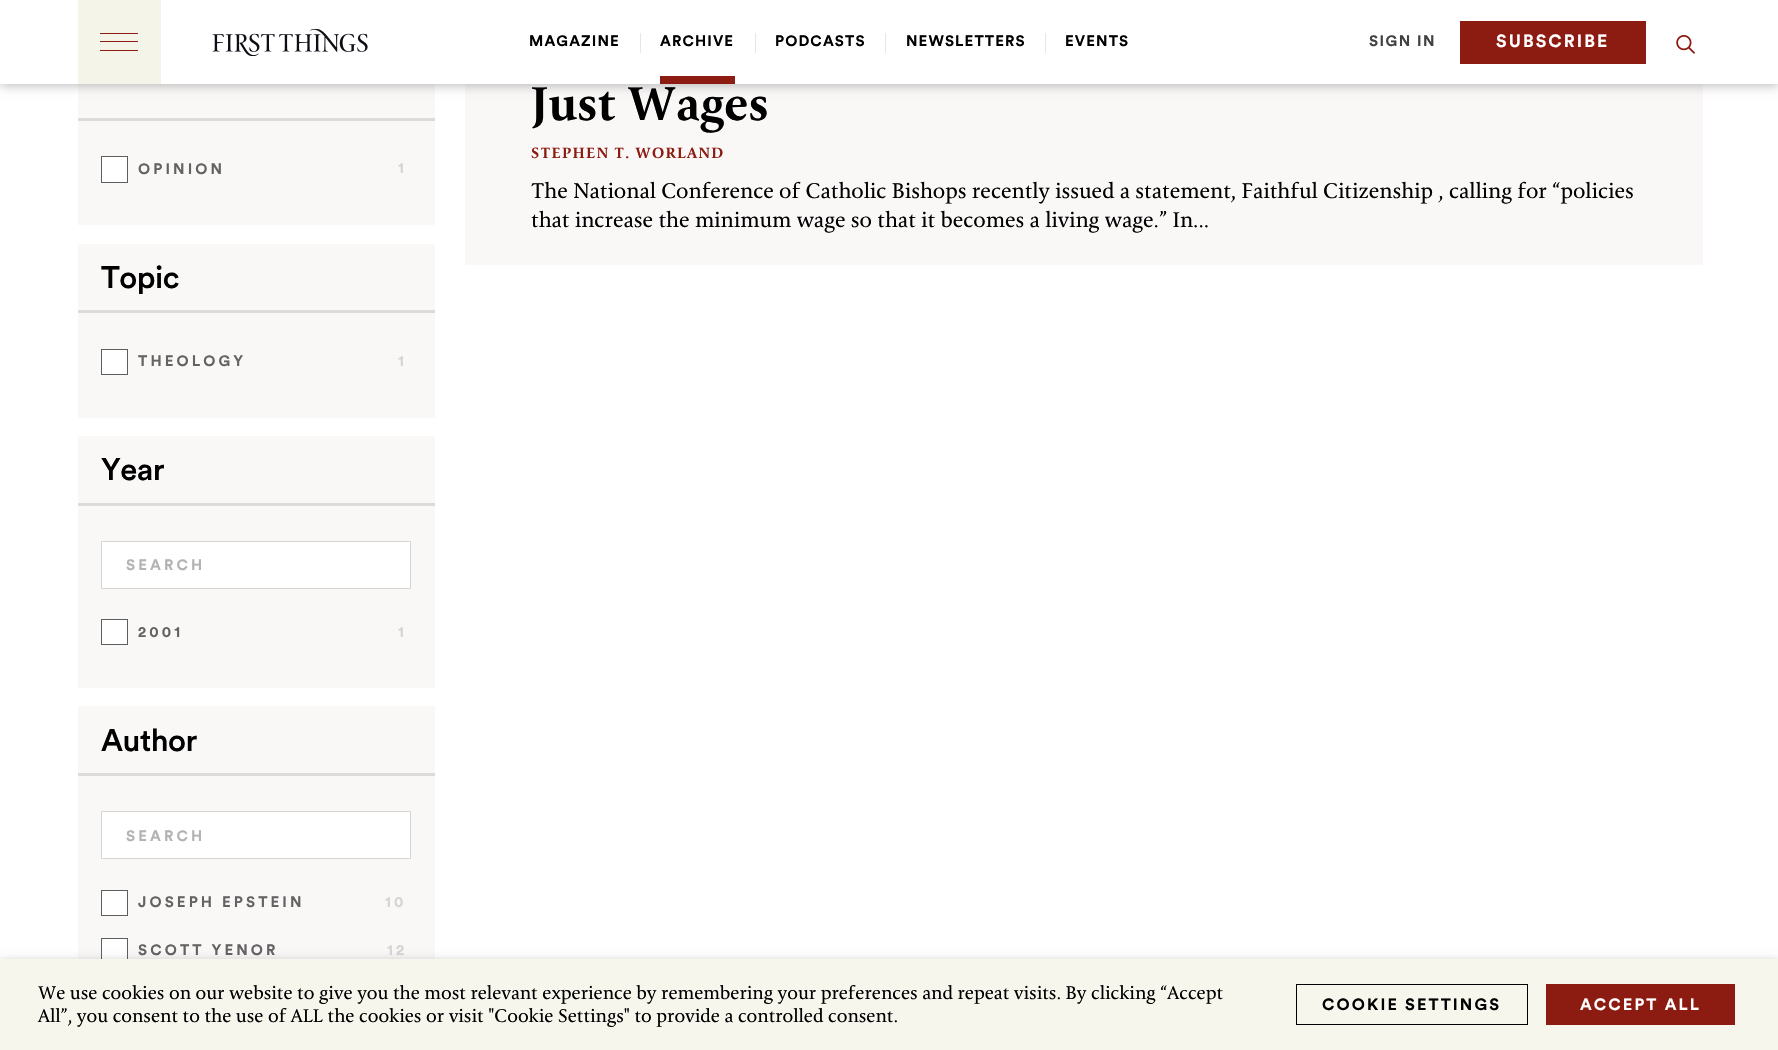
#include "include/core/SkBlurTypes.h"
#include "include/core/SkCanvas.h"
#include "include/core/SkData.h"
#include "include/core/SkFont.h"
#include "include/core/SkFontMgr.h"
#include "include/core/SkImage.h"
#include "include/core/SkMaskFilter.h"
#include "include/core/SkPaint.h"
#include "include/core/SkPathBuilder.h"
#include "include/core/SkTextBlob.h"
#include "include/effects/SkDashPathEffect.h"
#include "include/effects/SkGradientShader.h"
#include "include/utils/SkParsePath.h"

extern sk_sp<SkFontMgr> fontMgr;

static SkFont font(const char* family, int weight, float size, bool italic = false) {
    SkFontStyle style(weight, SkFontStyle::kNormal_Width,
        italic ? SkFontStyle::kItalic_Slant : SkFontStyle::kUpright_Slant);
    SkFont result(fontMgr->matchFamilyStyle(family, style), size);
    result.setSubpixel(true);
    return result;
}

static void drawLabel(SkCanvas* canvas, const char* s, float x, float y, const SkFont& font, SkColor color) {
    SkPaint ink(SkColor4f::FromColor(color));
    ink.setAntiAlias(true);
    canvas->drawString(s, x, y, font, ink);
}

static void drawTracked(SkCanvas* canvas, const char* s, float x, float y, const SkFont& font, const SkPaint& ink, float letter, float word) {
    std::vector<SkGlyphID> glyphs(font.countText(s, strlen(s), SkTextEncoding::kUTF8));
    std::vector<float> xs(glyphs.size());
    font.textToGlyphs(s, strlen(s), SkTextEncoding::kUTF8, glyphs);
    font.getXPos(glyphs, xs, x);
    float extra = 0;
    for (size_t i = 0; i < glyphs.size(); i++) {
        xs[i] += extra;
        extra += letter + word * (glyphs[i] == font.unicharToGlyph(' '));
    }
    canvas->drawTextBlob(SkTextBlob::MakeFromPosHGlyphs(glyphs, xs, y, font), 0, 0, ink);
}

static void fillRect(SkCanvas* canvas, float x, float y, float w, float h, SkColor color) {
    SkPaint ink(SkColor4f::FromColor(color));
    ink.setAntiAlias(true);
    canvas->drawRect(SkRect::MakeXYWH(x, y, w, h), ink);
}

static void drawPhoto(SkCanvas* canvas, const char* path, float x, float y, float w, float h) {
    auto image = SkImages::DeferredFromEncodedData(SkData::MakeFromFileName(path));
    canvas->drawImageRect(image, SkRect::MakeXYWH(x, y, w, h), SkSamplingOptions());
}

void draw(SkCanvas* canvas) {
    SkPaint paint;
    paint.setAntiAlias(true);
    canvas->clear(0xFFFFFFFF);
    fillRect(canvas, 78, 84, 357, 141, 0xFFFAF7F7);
    fillRect(canvas, 465, 84, 1238, 181, 0xFFFAF7F7);
    paint.setColor(0x40000000);
    paint.setMaskFilter(SkMaskFilter::MakeBlur(kNormal_SkBlurStyle, 5));
    canvas->drawRect(SkRect::MakeXYWH(0, 3, 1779, 83), paint);
    paint.setMaskFilter(nullptr);
    fillRect(canvas, 0, 0, 1778, 84, 0xFFFFFFFF);
    fillRect(canvas, 78, 0, 83, 84, 0xFFF4F4E9);
    fillRect(canvas, 100, 41, 38, 1, 0xFF8C1B11);
    fillRect(canvas, 100, 33, 38, 1, 0xFF8C1B11);
    fillRect(canvas, 100, 50, 38, 1, 0xFF8C1B11);
    drawPhoto(canvas, "assets/img1.png", 212, 29, 156, 27);
    SkFont font1 = font("Circular", 700, 15);
    paint.setColor(0xFF000000);
    drawTracked(canvas, "MAGAZINE", 529, 46, font1, paint, 1.1f, 0);
    fillRect(canvas, 640, 33, 1, 20, 0xFFE6E6E6);
    drawTracked(canvas, "ARCHIVE", 660, 46, font1, paint, 1.1f, 0);
    fillRect(canvas, 660, 76, 75, 8, 0xFF8C1B11);
    fillRect(canvas, 755, 33, 1, 20, 0xFFE6E6E6);
    drawTracked(canvas, "PODCASTS", 775, 46, font1, paint, 1.1f, 0);
    fillRect(canvas, 885, 33, 1, 20, 0xFFE6E6E6);
    drawTracked(canvas, "NEWSLETTERS", 906, 46, font1, paint, 1.1f, 0);
    fillRect(canvas, 1045, 33, 1, 20, 0xFFE6E6E6);
    drawTracked(canvas, "EVENTS", 1065, 46, font1, paint, 1.1f, 0);
    paint.setColor(0xFF414042);
    drawTracked(canvas, "SIGN IN", 1369, 46, font1, paint, 1.5f, 0);
    fillRect(canvas, 1460, 21, 186, 43, 0xFF8C1B11);
    SkFont font2 = font("Circular", 700, 17.5f);
    paint.setColor(0xFFFFFFFF);
    drawTracked(canvas, "SUBSCRIBE", 1496, 47, font2, paint, 2.1f, 0);
    drawPhoto(canvas, "assets/img2.png", 1676, 35, 19, 19);
    fillRect(canvas, 78, 118, 357, 3, 0xFFDCDADA);
    canvas->drawRect(SkRect::MakeXYWH(101.5f, 156.5f, 26, 26), paint);
    paint.setStroke(true);
    paint.setStrokeWidth(1);
    paint.setColor(0xFF5E5E5E);
    canvas->drawRect(SkRect::MakeXYWH(101.5f, 156.5f, 26, 26), paint);
    paint.setStroke(false);
    paint.setColor(0xFF646363);
    drawTracked(canvas, "OPINION", 138, 174, font1, paint, 3.1f, 0);
    paint.setColor(0xFFD7D4D4);
    drawTracked(canvas, "1", 398, 173, font1, paint, 3.1f, 0);
    fillRect(canvas, 78, 244, 357, 174, 0xFFFAF7F7);
    fillRect(canvas, 78, 310, 357, 3, 0xFFDCDADA);
    SkFont font3 = font("Circular", 500, 31);
    paint.setColor(0xFF000000);
    drawTracked(canvas, "Topic", 101, 288, font3, paint, -0.5f, 0);
    paint.setColor(0xFFFFFFFF);
    canvas->drawRect(SkRect::MakeXYWH(101.5f, 349.5f, 26, 25), paint);
    paint.setStroke(true);
    paint.setColor(0xFF5E5E5E);
    canvas->drawRect(SkRect::MakeXYWH(101.5f, 349.5f, 26, 25), paint);
    paint.setStroke(false);
    paint.setColor(0xFF646363);
    drawTracked(canvas, "THEOLOGY", 138, 366, font1, paint, 3.1f, 0);
    paint.setColor(0xFFD7D4D4);
    drawTracked(canvas, "1", 398, 366, font1, paint, 3.1f, 0);
    fillRect(canvas, 78, 436, 357, 252, 0xFFFAF7F7);
    fillRect(canvas, 78, 503, 357, 3, 0xFFDCDADA);
    paint.setColor(0xFF000000);
    drawTracked(canvas, "Year", 101, 480, font3, paint, -0.5f, 0);
    paint.setColor(0xFFFFFFFF);
    canvas->drawRect(SkRect::MakeXYWH(101.5f, 541.5f, 309, 47), paint);
    paint.setStroke(true);
    paint.setColor(0xFFD7D4D4);
    canvas->drawRect(SkRect::MakeXYWH(101.5f, 541.5f, 309, 47), paint);
    paint.setStroke(false);
    paint.setColor(0xFFB3B3B3);
    drawTracked(canvas, "SEARCH", 126, 570, font1, paint, 3.1f, 0);
    paint.setColor(0xFFFFFFFF);
    canvas->drawRect(SkRect::MakeXYWH(101.5f, 619.5f, 26, 25), paint);
    paint.setStroke(true);
    paint.setColor(0xFF5E5E5E);
    canvas->drawRect(SkRect::MakeXYWH(101.5f, 619.5f, 26, 25), paint);
    paint.setStroke(false);
    paint.setColor(0xFF646363);
    drawTracked(canvas, "2001", 138, 637, font1, paint, 3.1f, 0);
    paint.setColor(0xFFD7D4D4);
    drawTracked(canvas, "1", 398, 637, font1, paint, 3.1f, 0);
    fillRect(canvas, 78, 706, 357, 253, 0xFFFAF7F7);
    fillRect(canvas, 78, 773, 357, 3, 0xFFDCDADA);
    paint.setColor(0xFF000000);
    drawTracked(canvas, "Author", 101, 751, font3, paint, -0.5f, 0);
    paint.setColor(0xFFFFFFFF);
    canvas->drawRect(SkRect::MakeXYWH(101.5f, 811.5f, 309, 47), paint);
    paint.setStroke(true);
    paint.setColor(0xFFD7D4D4);
    canvas->drawRect(SkRect::MakeXYWH(101.5f, 811.5f, 309, 47), paint);
    paint.setStroke(false);
    paint.setColor(0xFFB3B3B3);
    drawTracked(canvas, "SEARCH", 126, 841, font1, paint, 3.1f, 0);
    paint.setColor(0xFFFFFFFF);
    canvas->drawRect(SkRect::MakeXYWH(101.5f, 890.5f, 26, 25), paint);
    paint.setStroke(true);
    paint.setColor(0xFF5E5E5E);
    canvas->drawRect(SkRect::MakeXYWH(101.5f, 890.5f, 26, 25), paint);
    paint.setStroke(false);
    paint.setColor(0xFF646363);
    drawTracked(canvas, "JOSEPH EPSTEIN", 138, 907, font1, paint, 3.1f, 0);
    paint.setColor(0xFFD7D4D4);
    drawTracked(canvas, "10", 385, 907, font1, paint, 3.1f, 0);
    fillRect(canvas, 102, 939, 25, 20, 0xFFFFFFFF);
    paint.setStroke(true);
    paint.setColor(0xFF5E5E5E);
    canvas->drawRect(SkRect::MakeXYWH(101.5f, 938.5f, 26, 25), paint);
    paint.setStroke(false);
    paint.setColor(0xFF646363);
    drawTracked(canvas, "SCOTT YENOR", 138, 955, font1, paint, 3.1f, 0);
    paint.setColor(0xFFD7D4D4);
    drawTracked(canvas, "12", 387, 955, font1, paint, 3.1f, 0);
    SkFont font4 = font("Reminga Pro", 500, 47.5f);
    drawLabel(canvas, "Just Wages", 531, 120, font4, 0xFF000000);
    SkFont font5 = font("Reminga Pro", 500, 15);
    paint.setColor(0xFF8C1B11);
    drawTracked(canvas, "STEPHEN T. WORLAND", 531, 158, font5, paint, 1.25f, 0);
    SkFont font6 = font("Reminga Pro", 400, 21.25f);
    drawLabel(canvas, "The National Conference of Catholic Bishops recently issued a statement, Faithful Citizenship , calling for “policies", 531, 198, font6, 0xFF000000);
    drawLabel(canvas, "that increase the minimum wage so that it becomes a living wage.” In...", 531, 227, font6, 0xFF000000);
    paint.setColor(0x80000000);
    paint.setMaskFilter(SkMaskFilter::MakeBlur(kNormal_SkBlurStyle, 6));
    canvas->drawRect(SkRect::MakeXYWH(0, 965, 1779, 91), paint);
    paint.setMaskFilter(nullptr);
    fillRect(canvas, 0, 959, 1778, 91, 0xFFF6F6ED);
    SkFont font7 = font("Reminga Pro", 400, 18.33f);
    drawLabel(canvas, "We use cookies on our website to give you the most relevant experience by remembering your preferences and repeat visits. By clicking “Accept", 38, 999, font7, 0xFF000000);
    drawLabel(canvas, "All”, you consent to the use of ALL the cookies or visit \"Cookie Settings\" to provide a controlled consent.", 38, 1022, font7, 0xFF000000);
    paint.setStroke(true);
    paint.setColor(0xFF000000);
    canvas->drawRect(SkRect::MakeXYWH(1296.5f, 984.5f, 231, 40), paint);
    SkFont font8 = font("Circular", 700, 16.25f);
    paint.setStroke(false);
    drawTracked(canvas, "COOKIE SETTINGS", 1322, 1010, font8, paint, 2.1f, 0);
    fillRect(canvas, 1546, 984, 189, 41, 0xFF8C1B11);
    paint.setColor(0xFFFFFFFF);
    drawTracked(canvas, "ACCEPT ALL", 1580, 1010, font8, paint, 2.1f, 0);
}
